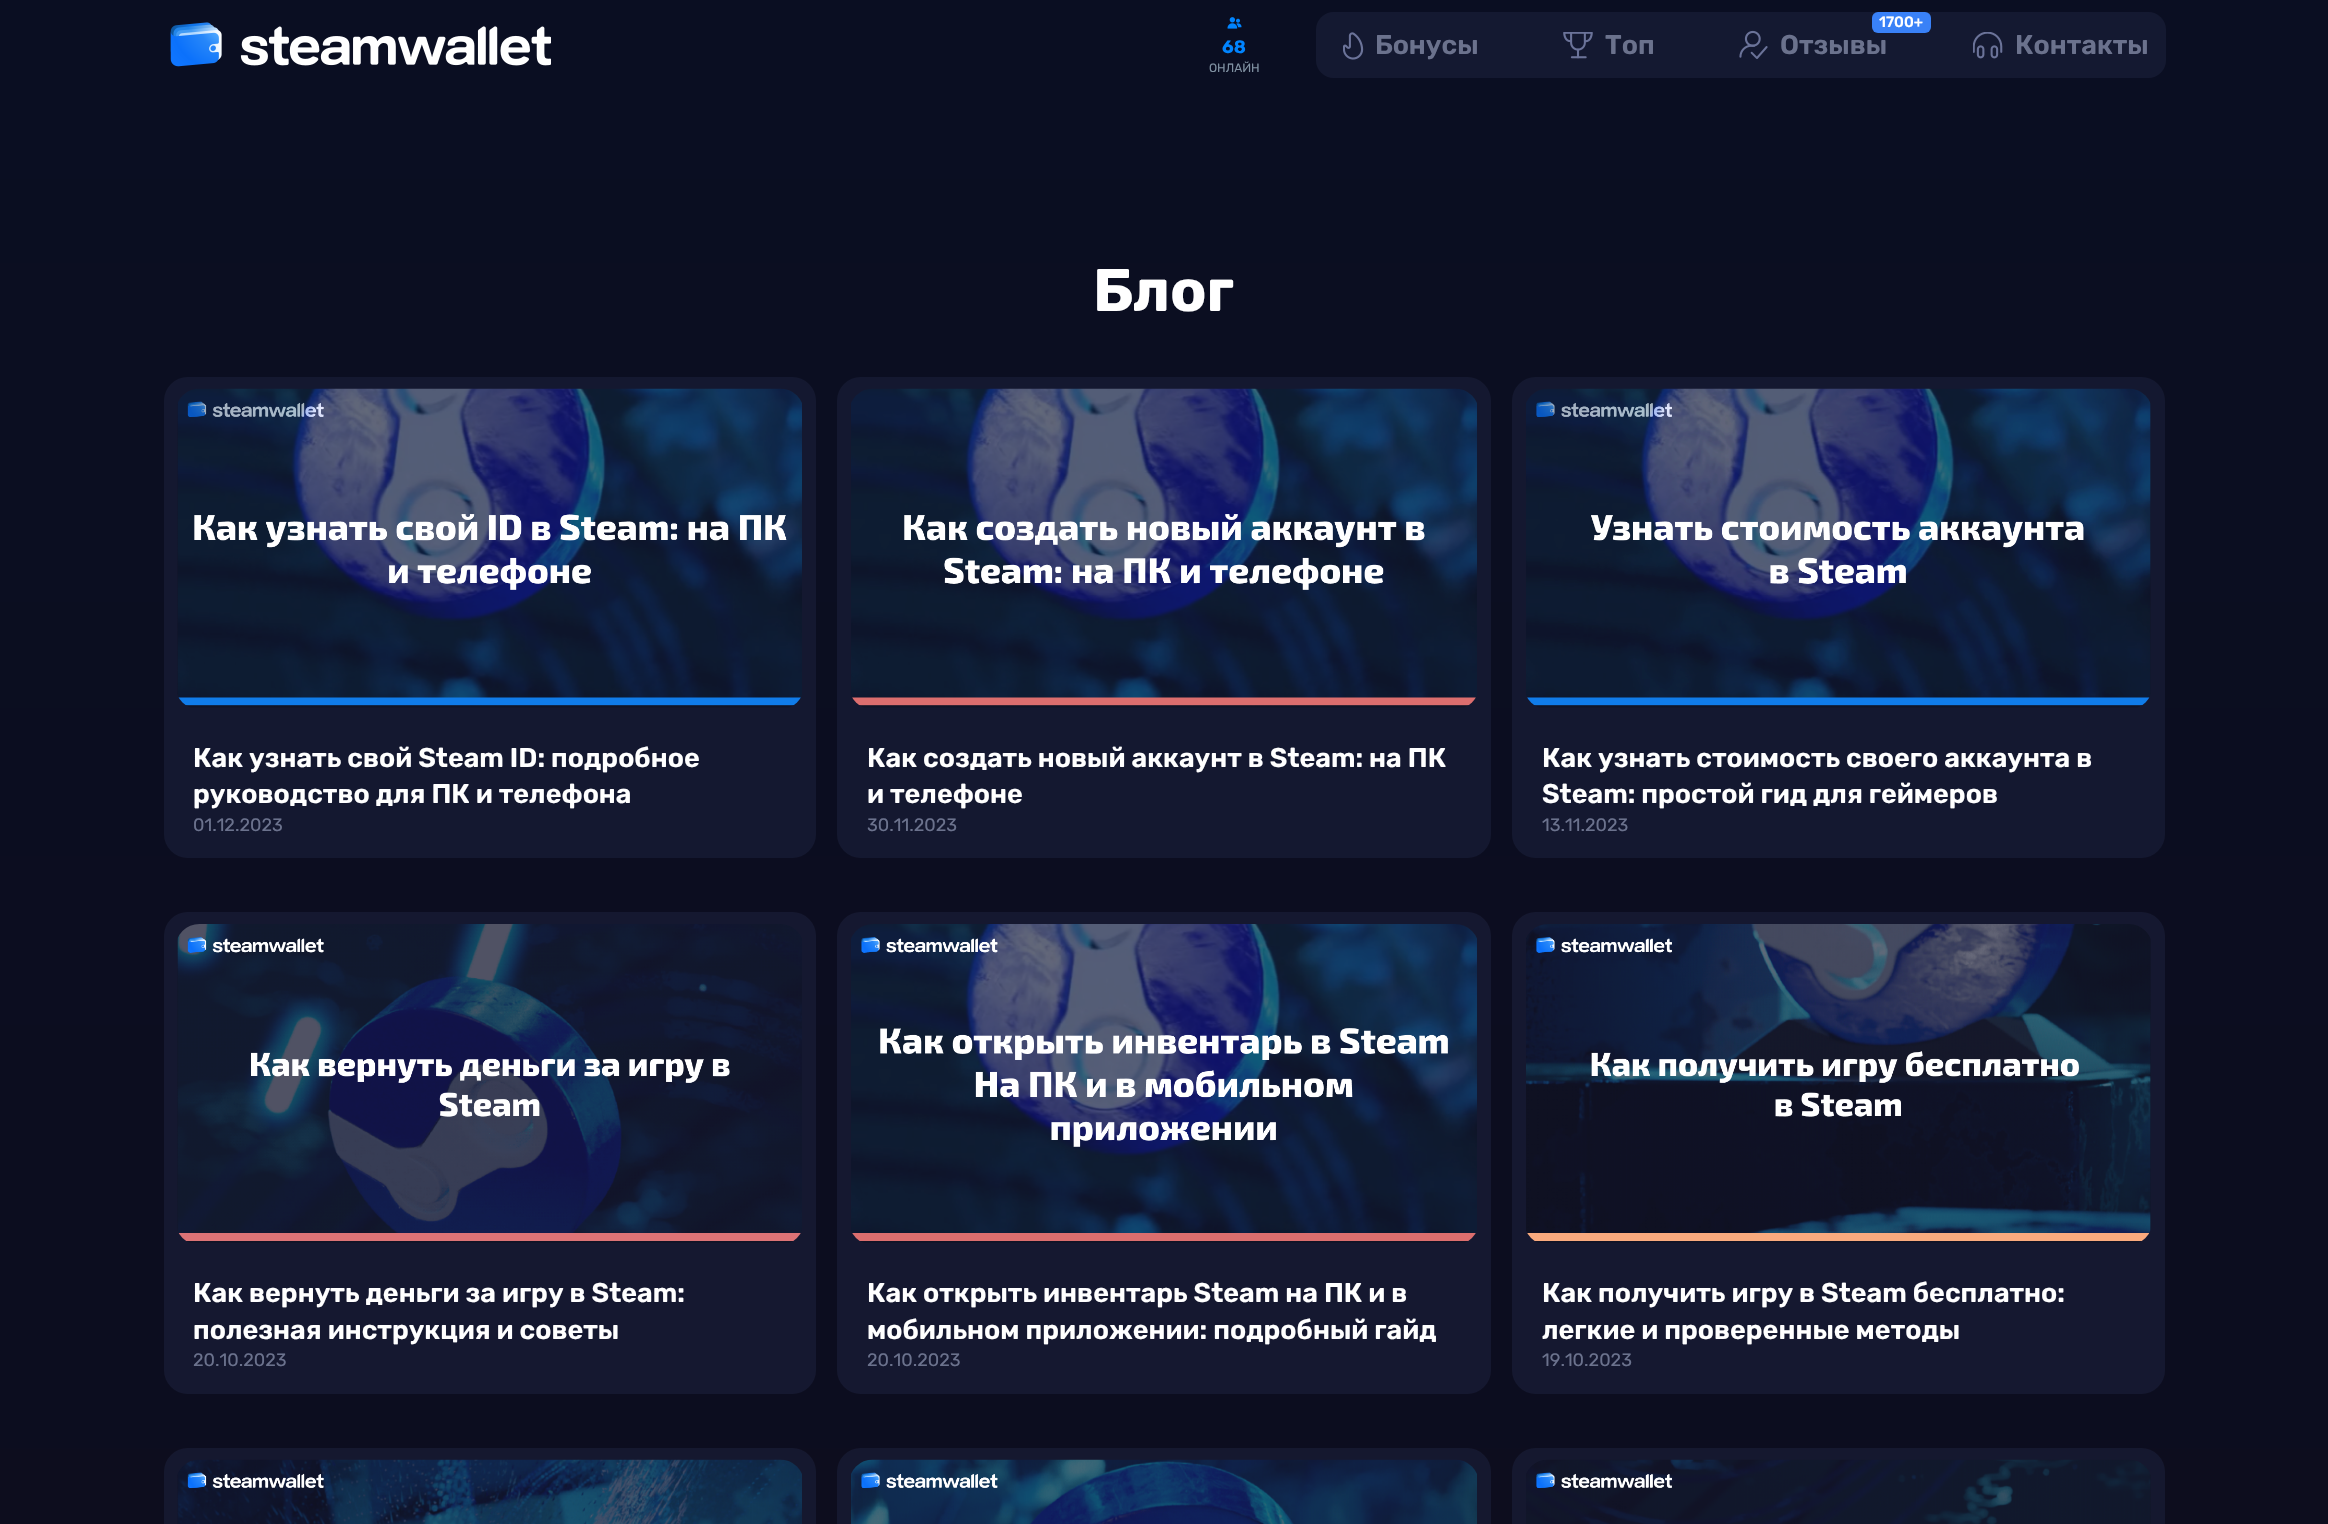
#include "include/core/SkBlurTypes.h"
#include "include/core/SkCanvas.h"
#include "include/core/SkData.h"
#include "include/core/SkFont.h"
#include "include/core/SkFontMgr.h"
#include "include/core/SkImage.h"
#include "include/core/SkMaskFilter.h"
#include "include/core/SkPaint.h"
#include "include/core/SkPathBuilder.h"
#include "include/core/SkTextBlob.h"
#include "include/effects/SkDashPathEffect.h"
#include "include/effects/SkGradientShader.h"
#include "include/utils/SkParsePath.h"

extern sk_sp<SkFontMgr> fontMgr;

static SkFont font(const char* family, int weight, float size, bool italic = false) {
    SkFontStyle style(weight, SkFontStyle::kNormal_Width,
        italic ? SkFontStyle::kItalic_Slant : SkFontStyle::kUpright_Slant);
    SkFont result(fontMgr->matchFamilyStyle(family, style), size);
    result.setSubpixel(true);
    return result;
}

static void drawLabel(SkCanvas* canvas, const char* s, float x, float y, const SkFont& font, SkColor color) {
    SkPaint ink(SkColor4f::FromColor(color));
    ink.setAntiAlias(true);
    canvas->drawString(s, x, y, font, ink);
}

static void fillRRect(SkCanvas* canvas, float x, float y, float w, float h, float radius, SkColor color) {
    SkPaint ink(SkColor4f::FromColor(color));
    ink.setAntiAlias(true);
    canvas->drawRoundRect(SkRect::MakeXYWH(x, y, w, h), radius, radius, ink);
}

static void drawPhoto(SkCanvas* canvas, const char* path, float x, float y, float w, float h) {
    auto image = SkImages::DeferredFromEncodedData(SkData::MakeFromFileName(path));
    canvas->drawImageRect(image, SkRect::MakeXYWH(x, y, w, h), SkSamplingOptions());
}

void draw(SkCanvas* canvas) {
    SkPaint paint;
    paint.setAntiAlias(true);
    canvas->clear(0xFFFFFFFF);
    {
        const SkColor colors[] = {0xFF0A0E22, 0xFF0F0C1B, 0xFF05091B};
        const float stops[] = {0, 1, 1};
        const SkPoint ends[] = {{1164, -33}, {1164, 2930}};
        paint.setShader(SkGradientShader::MakeLinear(ends, colors, stops, 3, SkTileMode::kClamp));
        paint.setAlpha(255);
    }
    canvas->drawRect(SkRect::MakeXYWH(0, 0, 2328, 1524), paint);
    drawPhoto(canvas, "assets/img1.png", 170, 22, 381, 45);
    drawPhoto(canvas, "assets/img2.png", 1227, 17, 15, 12);
    SkFont font1 = font("Rubik", 700, 18);
    drawLabel(canvas, "68", 1222, 53, font1, 0xFF0084FF);
    SkFont font2 = font("Rubik", 400, 12);
    drawLabel(canvas, "ОНЛАЙН", 1209, 72, font2, 0xFF8091A2);
    fillRRect(canvas, 1316, 12, 850, 66, 18, 0xFF141931);
    drawPhoto(canvas, "assets/img3.png", 1343, 32, 21, 28);
    SkFont font3 = font("Rubik", 600, 27);
    drawLabel(canvas, "Бонусы", 1375, 54, font3, 0xFF6B728D);
    drawPhoto(canvas, "assets/img4.png", 1563, 32, 30, 27);
    drawLabel(canvas, "Топ", 1605, 54, font3, 0xFF6B728D);
    fillRRect(canvas, 1872, 12, 59, 21, 6, 0xFF3981F7);
    SkFont font4 = font("Rubik", 500, 15);
    drawLabel(canvas, "1700+", 1879, 27, font4, 0xFFFFFFFF);
    drawPhoto(canvas, "assets/img5.png", 1739, 30, 29, 29);
    drawLabel(canvas, "Отзывы", 1780, 54, font3, 0xFF6B728D);
    drawPhoto(canvas, "assets/img6.png", 1973, 32, 30, 27);
    drawLabel(canvas, "Контакты", 2015, 54, font3, 0xFF6B728D);
    SkFont font5 = font("Rubik", 700, 60);
    drawLabel(canvas, "Блог", 1093, 311, font5, 0xFFFFFFFF);
    fillRRect(canvas, 164, 377, 652, 481, 24, 0xFF141830);
    drawPhoto(canvas, "assets/img7.png", 177, 388, 625, 320);
    drawLabel(canvas, "Как узнать свой Steam ID: подробное", 193, 767, font3, 0xFFFFFFFF);
    drawLabel(canvas, "руководство для ПК и телефона", 193, 803, font3, 0xFFFFFFFF);
    SkFont font6 = font("Rubik", 400, 18);
    drawLabel(canvas, "01.12.2023", 193, 831, font6, 0xFF6B728D);
    fillRRect(canvas, 837, 377, 654, 481, 24, 0xFF141830);
    drawPhoto(canvas, "assets/img8.png", 851, 388, 626, 320);
    drawLabel(canvas, "Как создать новый аккаунт в Steam: на ПК", 867, 767, font3, 0xFFFFFFFF);
    drawLabel(canvas, "и телефоне", 867, 803, font3, 0xFFFFFFFF);
    drawLabel(canvas, "30.11.2023", 867, 831, font6, 0xFF6B728D);
    fillRRect(canvas, 1512, 377, 653, 481, 24, 0xFF141830);
    drawPhoto(canvas, "assets/img9.png", 1526, 388, 625, 320);
    drawLabel(canvas, "Как узнать стоимость своего аккаунта в", 1542, 767, font3, 0xFFFFFFFF);
    drawLabel(canvas, "Steam: простой гид для геймеров", 1542, 803, font3, 0xFFFFFFFF);
    drawLabel(canvas, "13.11.2023", 1542, 831, font6, 0xFF6B728D);
    fillRRect(canvas, 164, 912, 652, 482, 24, 0xFF151830);
    drawPhoto(canvas, "assets/img10.png", 177, 924, 625, 319);
    drawLabel(canvas, "Как вернуть деньги за игру в Steam:", 193, 1302, font3, 0xFFFFFFFF);
    drawLabel(canvas, "полезная инструкция и советы", 193, 1339, font3, 0xFFFFFFFF);
    drawLabel(canvas, "20.10.2023", 193, 1366, font6, 0xFF6B728D);
    fillRRect(canvas, 837, 912, 654, 482, 24, 0xFF151830);
    drawPhoto(canvas, "assets/img11.png", 851, 924, 626, 319);
    drawLabel(canvas, "Как открыть инвентарь Steam на ПК и в", 867, 1302, font3, 0xFFFFFFFF);
    drawLabel(canvas, "мобильном приложении: подробный гайд", 867, 1339, font3, 0xFFFFFFFF);
    drawLabel(canvas, "20.10.2023", 867, 1366, font6, 0xFF6B728D);
    fillRRect(canvas, 1512, 912, 653, 482, 24, 0xFF151830);
    drawPhoto(canvas, "assets/img12.png", 1526, 924, 625, 319);
    drawLabel(canvas, "Как получить игру в Steam бесплатно:", 1542, 1302, font3, 0xFFFFFFFF);
    drawLabel(canvas, "легкие и проверенные методы", 1542, 1339, font3, 0xFFFFFFFF);
    drawLabel(canvas, "19.10.2023", 1542, 1366, font6, 0xFF6B728D);
    fillRRect(canvas, 164, 1448, 652, 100, 24, 0xFF15182F);
    drawPhoto(canvas, "assets/img13.png", 177, 1459, 625, 65);
    fillRRect(canvas, 837, 1448, 654, 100, 24, 0xFF15182F);
    drawPhoto(canvas, "assets/img14.png", 851, 1459, 626, 65);
    fillRRect(canvas, 1512, 1448, 653, 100, 24, 0xFF15182F);
    drawPhoto(canvas, "assets/img15.png", 1526, 1459, 625, 65);
}
